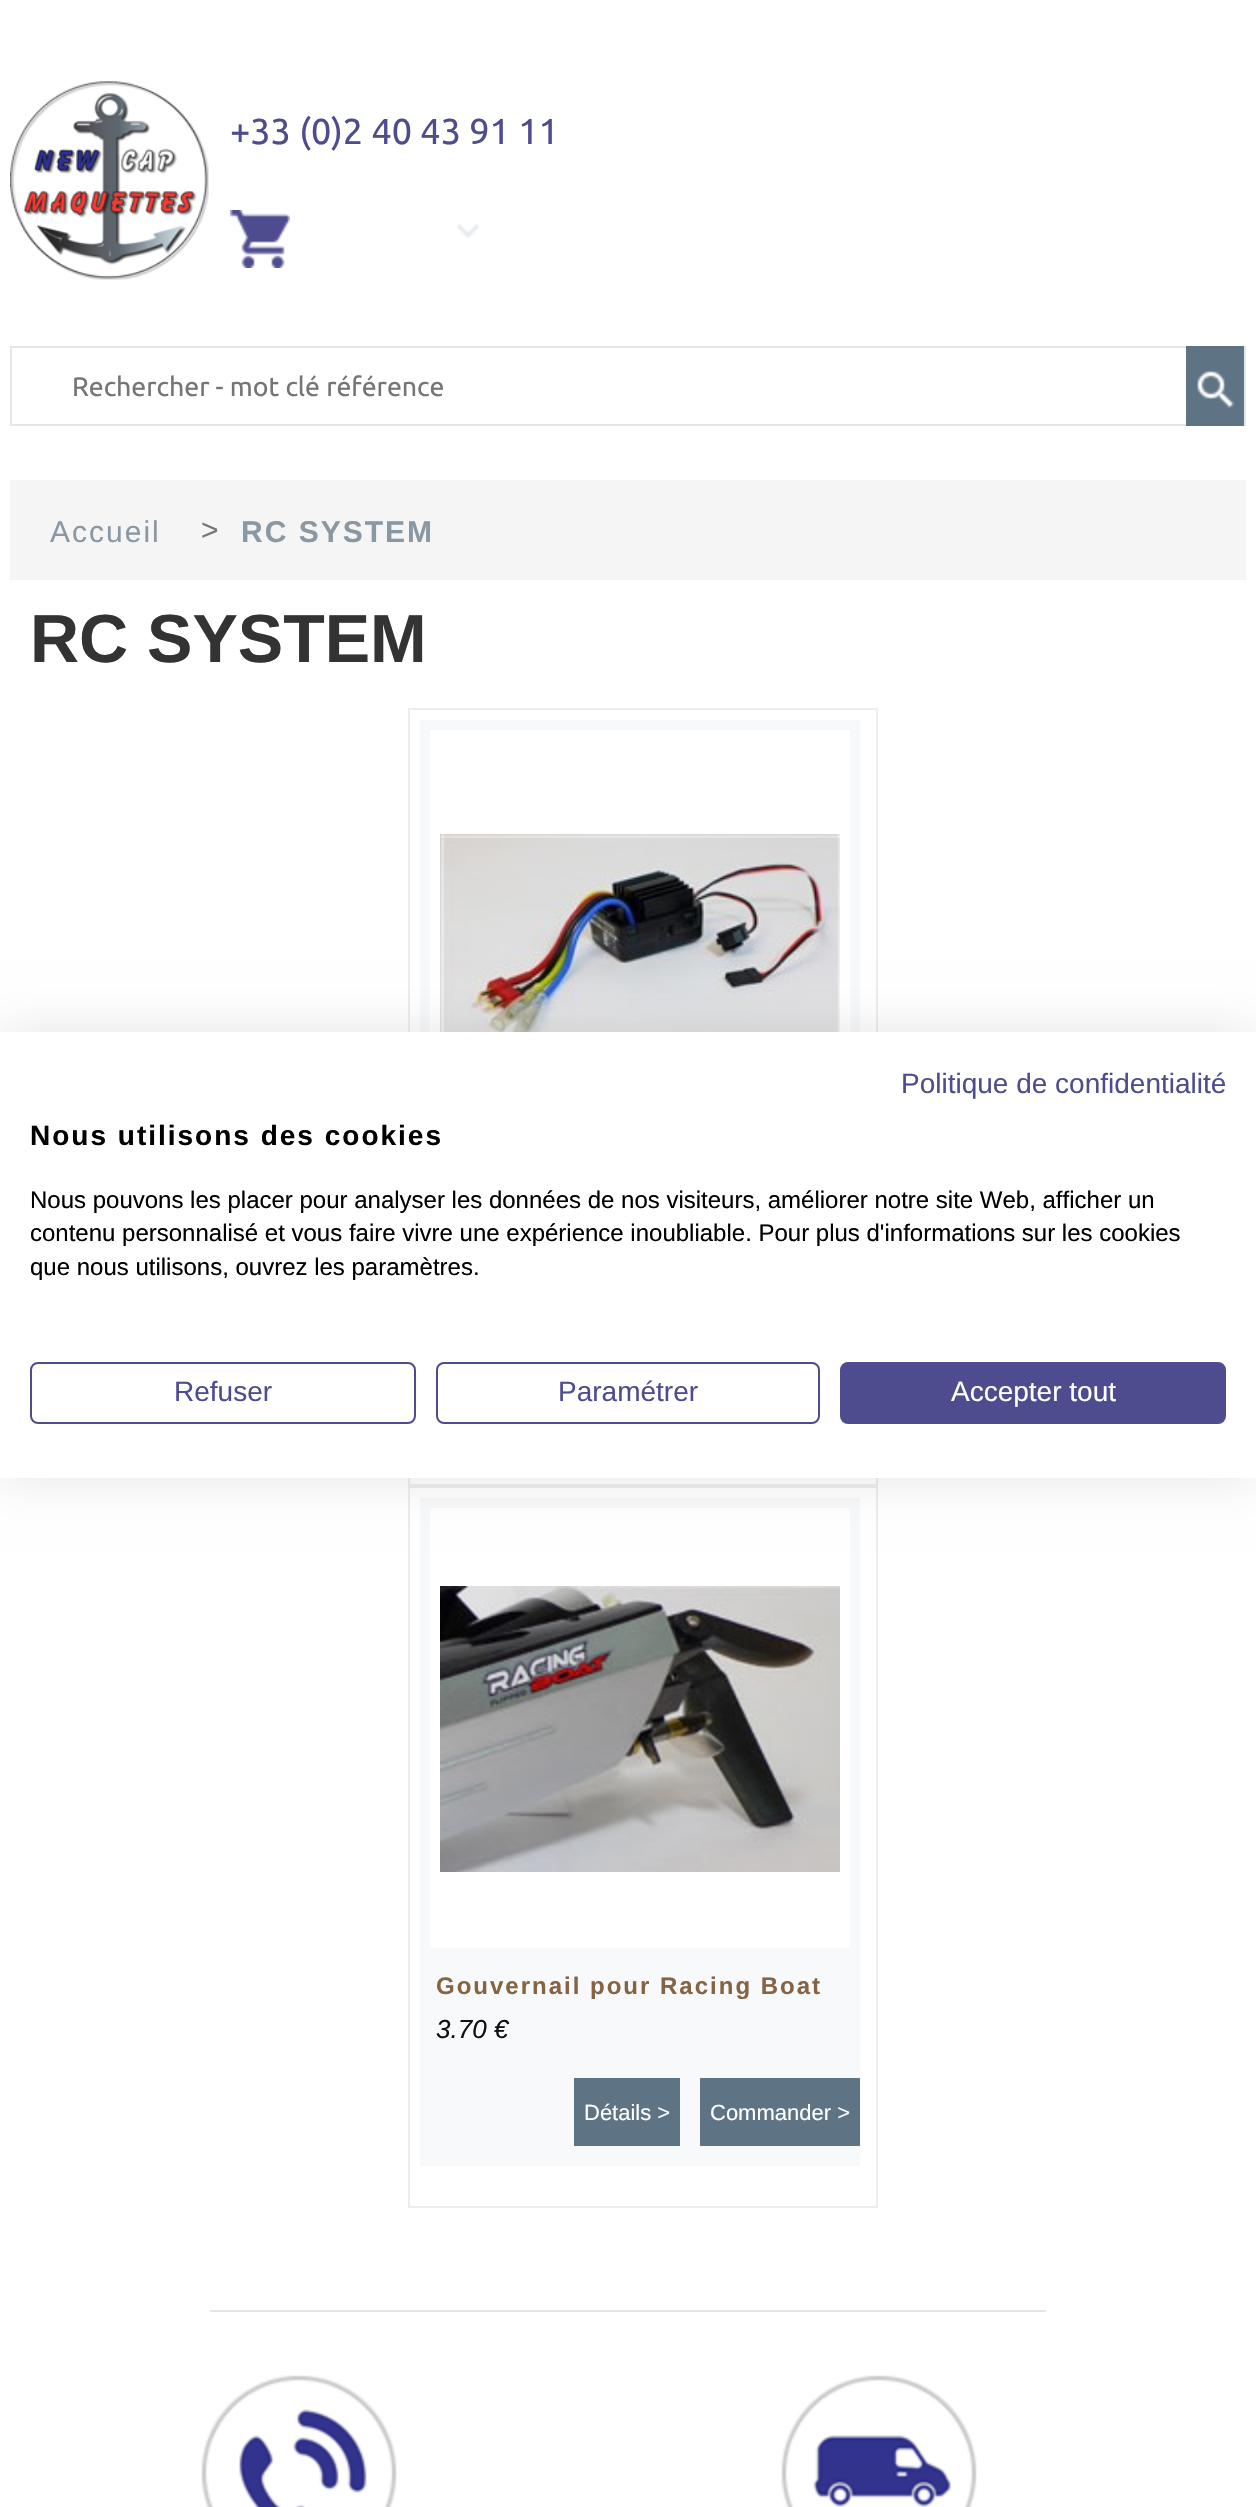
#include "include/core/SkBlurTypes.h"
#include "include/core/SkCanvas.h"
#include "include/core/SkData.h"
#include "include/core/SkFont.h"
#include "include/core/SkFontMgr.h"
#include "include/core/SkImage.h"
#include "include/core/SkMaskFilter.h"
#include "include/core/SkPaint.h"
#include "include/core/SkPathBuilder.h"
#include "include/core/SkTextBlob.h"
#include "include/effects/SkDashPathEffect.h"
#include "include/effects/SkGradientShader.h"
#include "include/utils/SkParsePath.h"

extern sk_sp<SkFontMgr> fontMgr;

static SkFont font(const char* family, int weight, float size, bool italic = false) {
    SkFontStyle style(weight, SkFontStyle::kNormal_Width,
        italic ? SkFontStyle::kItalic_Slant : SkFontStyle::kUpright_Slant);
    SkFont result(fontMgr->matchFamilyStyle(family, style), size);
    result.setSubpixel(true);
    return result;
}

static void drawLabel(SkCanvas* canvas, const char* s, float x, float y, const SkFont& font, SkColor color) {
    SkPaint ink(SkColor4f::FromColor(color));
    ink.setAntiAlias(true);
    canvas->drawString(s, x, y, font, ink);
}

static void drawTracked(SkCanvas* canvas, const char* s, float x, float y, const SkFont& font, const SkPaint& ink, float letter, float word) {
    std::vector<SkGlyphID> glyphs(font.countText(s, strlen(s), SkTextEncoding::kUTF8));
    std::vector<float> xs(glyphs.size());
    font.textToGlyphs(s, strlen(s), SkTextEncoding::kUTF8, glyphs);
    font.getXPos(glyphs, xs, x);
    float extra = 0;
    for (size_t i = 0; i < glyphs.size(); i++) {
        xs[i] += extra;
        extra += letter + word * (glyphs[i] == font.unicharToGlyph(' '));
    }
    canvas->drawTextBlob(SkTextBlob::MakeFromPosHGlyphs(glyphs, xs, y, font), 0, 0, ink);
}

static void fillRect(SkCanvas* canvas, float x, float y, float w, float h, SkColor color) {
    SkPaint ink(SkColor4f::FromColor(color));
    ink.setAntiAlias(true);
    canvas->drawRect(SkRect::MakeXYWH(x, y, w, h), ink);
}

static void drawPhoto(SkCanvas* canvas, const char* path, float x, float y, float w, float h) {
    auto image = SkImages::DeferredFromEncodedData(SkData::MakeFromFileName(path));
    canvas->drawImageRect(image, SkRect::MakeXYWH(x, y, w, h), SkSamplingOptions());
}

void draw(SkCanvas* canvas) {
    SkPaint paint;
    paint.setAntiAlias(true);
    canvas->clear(0xFFFFFFFF);
    drawPhoto(canvas, "assets/img1.png", 10, 81, 199, 199);
    SkFont font1 = font("Ubuntu", 400, 36);
    drawLabel(canvas, "+33 (0)2 40 43 91 11", 230, 144, font1, 0xFF4E4C8E);
    drawPhoto(canvas, "assets/img2.png", 230, 210, 60, 58);
    drawPhoto(canvas, "assets/img3.png", 456, 224, 24, 14);
    fillRect(canvas, 10, 346, 1176, 2, 0xFFE0E7ED);
    fillRect(canvas, 10, 424, 1176, 2, 0xFFE0E7ED);
    fillRect(canvas, 10, 346, 2, 80, 0xFFE0E7ED);
    SkFont font2 = font("Ubuntu", 400, 26.7f);
    drawLabel(canvas, "Rechercher - mot clé référence", 72, 396, font2, 0xFF757575);
    fillRect(canvas, 1186, 346, 58, 80, 0xFF5E7485);
    fillRect(canvas, 1244, 346, 2, 80, 0xFFE0E7ED);
    drawPhoto(canvas, "assets/img4.png", 1196, 370, 38, 38);
    fillRect(canvas, 10, 480, 1236, 100, 0xFFF5F5F5);
    SkFont font3 = font("Liberation Sans", 400, 30);
    paint.setColor(0xFF8998A3);
    drawTracked(canvas, "Accueil", 50, 542, font3, paint, 2, 0);
    paint.setColor(0xFF757575);
    drawTracked(canvas, ">", 201, 540, font3, paint, 2, 0);
    SkFont font4 = font("Liberation Sans", 700, 30);
    paint.setColor(0xFF8998A3);
    drawTracked(canvas, "RC SYSTEM", 241, 542, font4, paint, 2, 0);
    SkFont font5 = font("Liberation Sans", 700, 68);
    drawLabel(canvas, "RC SYSTEM", 30, 662, font5, 0xFF333333);
    paint.setStroke(true);
    paint.setStrokeWidth(2);
    paint.setColor(0xFFEDEDED);
    canvas->drawRect(SkRect::MakeXYWH(409, 709, 468, 776), paint);
    paint.setStrokeWidth(10);
    paint.setColor(0xFFF7F9FB);
    canvas->drawRect(SkRect::MakeXYWH(425, 725, 430, 450), paint);
    drawPhoto(canvas, "assets/img5.png", 440, 834, 400, 198);
    paint.setStrokeWidth(2);
    paint.setColor(0xFFEDEDED);
    canvas->drawRect(SkRect::MakeXYWH(409, 1487, 468, 720), paint);
    paint.setStrokeWidth(10);
    paint.setColor(0xFFF7F9FB);
    canvas->drawRect(SkRect::MakeXYWH(425, 1503, 430, 450), paint);
    drawPhoto(canvas, "assets/img6.png", 440, 1586, 400, 286);
    fillRect(canvas, 420, 1958, 440, 208, 0xFFF7F9FB);
    SkFont font6 = font("Liberation Sans", 700, 24);
    paint.setStroke(false);
    paint.setColor(0xFF856444);
    drawTracked(canvas, "Gouvernail pour Racing Boat", 436, 1994, font6, paint, 2, 0);
    SkFont font7 = font("Liberation Sans", 400, 26, true);
    drawLabel(canvas, "3.70 €", 436, 2038, font7, 0xFF111111);
    fillRect(canvas, 574, 2078, 106, 68, 0xFF5E7485);
    SkFont font8 = font("Liberation Sans", 400, 22);
    drawLabel(canvas, "Détails >", 584, 2120, font8, 0xFFFFFFFF);
    fillRect(canvas, 700, 2078, 160, 68, 0xFF5E7485);
    drawLabel(canvas, "Commander >", 710, 2120, font8, 0xFFFFFFFF);
    fillRect(canvas, 210, 2310, 836, 2, 0xFFE5E5E5);
    drawPhoto(canvas, "assets/img7.png", 201, 2375, 196, 132);
    drawPhoto(canvas, "assets/img8.png", 781, 2375, 196, 132);
    paint.setColor(0x1A000000);
    paint.setMaskFilter(SkMaskFilter::MakeBlur(kNormal_SkBlurStyle, 24));
    canvas->drawRect(SkRect::MakeXYWH(0, 1032, 1256, 446), paint);
    paint.setMaskFilter(nullptr);
    fillRect(canvas, 0, 1032, 1256, 446, 0xFFFFFFFF);
    SkFont font9 = font("Liberation Sans", 400, 28);
    drawLabel(canvas, "Politique de confidentialité", 901, 1093, font9, 0xFF4E4C8E);
    SkFont font10 = font("Liberation Sans", 700, 28);
    paint.setColor(0xFF000000);
    drawTracked(canvas, "Nous utilisons des cookies", 30, 1145, font10, paint, 2, 0);
    SkFont font11 = font("Liberation Sans", 400, 24);
    drawLabel(canvas, "Nous pouvons les placer pour analyser les données de nos visiteurs, améliorer notre site Web, afficher un", 30, 1208, font11, 0xFF000000);
    drawLabel(canvas, "contenu personnalisé et vous faire vivre une expérience inoubliable. Pour plus d'informations sur les cookies", 30, 1241, font11, 0xFF000000);
    drawLabel(canvas, "que nous utilisons, ouvrez les paramètres.", 30, 1275, font11, 0xFF000000);
    paint.setStroke(true);
    paint.setStrokeWidth(2);
    paint.setColor(0xFF4E4C8E);
    canvas->drawRoundRect(SkRect::MakeXYWH(31, 1363, 384, 60), 7, 7, paint);
    drawLabel(canvas, "Refuser", 174, 1401, font9, 0xFF4E4C8E);
    canvas->drawRoundRect(SkRect::MakeXYWH(437, 1363, 382, 60), 7, 7, paint);
    drawLabel(canvas, "Paramétrer", 558, 1401, font9, 0xFF4E4C8E);
    paint.setStroke(false);
    canvas->drawRoundRect(SkRect::MakeXYWH(841, 1363, 384, 60), 7, 7, paint);
    paint.setStroke(true);
    canvas->drawRoundRect(SkRect::MakeXYWH(841, 1363, 384, 60), 7, 7, paint);
    drawLabel(canvas, "Accepter tout", 951, 1401, font9, 0xFFFFFFFF);
}
